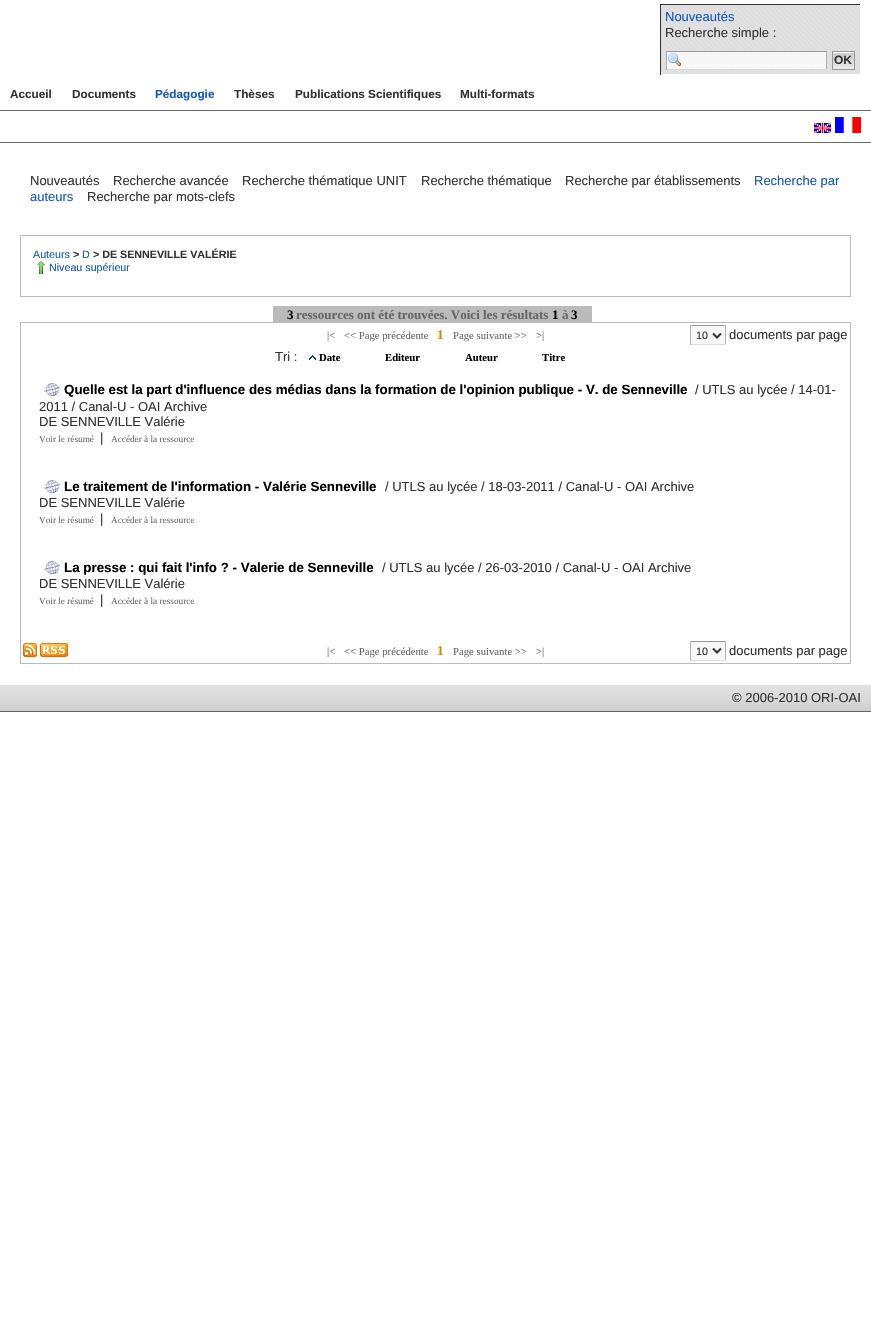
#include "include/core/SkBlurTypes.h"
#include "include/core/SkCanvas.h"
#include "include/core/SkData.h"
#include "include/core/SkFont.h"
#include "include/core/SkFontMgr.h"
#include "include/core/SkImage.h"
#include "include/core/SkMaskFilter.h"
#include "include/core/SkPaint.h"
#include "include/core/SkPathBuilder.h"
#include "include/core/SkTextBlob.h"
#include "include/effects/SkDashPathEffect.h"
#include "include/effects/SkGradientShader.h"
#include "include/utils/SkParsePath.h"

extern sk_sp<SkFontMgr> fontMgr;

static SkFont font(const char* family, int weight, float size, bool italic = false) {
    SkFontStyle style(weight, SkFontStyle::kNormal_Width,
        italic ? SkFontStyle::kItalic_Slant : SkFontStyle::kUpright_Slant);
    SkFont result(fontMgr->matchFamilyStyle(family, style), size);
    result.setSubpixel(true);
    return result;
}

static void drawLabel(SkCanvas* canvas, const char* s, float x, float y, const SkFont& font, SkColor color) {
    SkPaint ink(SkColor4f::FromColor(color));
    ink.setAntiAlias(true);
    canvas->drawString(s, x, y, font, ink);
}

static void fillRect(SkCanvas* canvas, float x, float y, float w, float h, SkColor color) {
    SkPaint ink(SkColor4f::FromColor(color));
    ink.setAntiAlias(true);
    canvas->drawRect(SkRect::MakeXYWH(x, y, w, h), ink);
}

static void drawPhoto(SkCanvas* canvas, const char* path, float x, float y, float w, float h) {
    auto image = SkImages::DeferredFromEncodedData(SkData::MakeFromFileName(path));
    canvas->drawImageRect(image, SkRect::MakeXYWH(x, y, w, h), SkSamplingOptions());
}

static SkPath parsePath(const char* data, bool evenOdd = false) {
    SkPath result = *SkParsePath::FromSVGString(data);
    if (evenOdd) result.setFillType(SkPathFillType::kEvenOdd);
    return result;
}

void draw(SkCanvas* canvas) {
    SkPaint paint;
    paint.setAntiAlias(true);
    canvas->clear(0xFFFFFFFF);
    drawPhoto(canvas, "assets/img1.png", 661, 5, 199, 69);
    fillRect(canvas, 660, 4, 201, 1, 0xFF333333);
    fillRect(canvas, 860, 4, 1, 1, 0xFFFFFFFF);
    fillRect(canvas, 660, 4, 1, 71, 0xFF333333);
    SkFont font1 = font("Liberation Sans", 400, 13);
    drawLabel(canvas, "Nouveautés", 665, 21, font1, 0xFF1158C0);
    drawLabel(canvas, "Recherche simple :", 665, 37, font1, 0xFF333333);
    fillRect(canvas, 667, 52, 159, 17, 0xFFF7F7F7);
    drawPhoto(canvas, "assets/img2.png", 668, 53, 13, 14);
    fillRect(canvas, 666, 51, 161, 1, 0xFF999999);
    fillRect(canvas, 826, 51, 1, 19, 0xFFAAB3B3);
    fillRect(canvas, 666, 69, 161, 1, 0xFFD5DDDD);
    fillRect(canvas, 666, 51, 1, 19, 0xFFAAB3B3);
    drawPhoto(canvas, "assets/img3.png", 833, 52, 21, 17);
    paint.setStroke(true);
    paint.setStrokeWidth(1);
    paint.setColor(0xFF999999);
    canvas->drawRect(SkRect::MakeXYWH(832.5f, 51.5f, 22, 18), paint);
    SkFont font2 = font("Liberation Sans", 700, 12);
    drawLabel(canvas, "OK", 834, 64, font2, 0xFF333333);
    fillRect(canvas, 0, 110, 871, 1, 0xFF666666);
    SkFont font3 = font("Liberation Sans", 700, 11.75f);
    drawLabel(canvas, "Accueil", 10, 98, font3, 0xFF333333);
    drawLabel(canvas, "Documents", 72, 98, font3, 0xFF333333);
    drawLabel(canvas, "Pédagogie", 155, 98, font3, 0xFF1158C0);
    drawLabel(canvas, "Thèses", 234, 98, font3, 0xFF333333);
    drawLabel(canvas, "Publications Scientifiques", 295, 98, font3, 0xFF333333);
    drawLabel(canvas, "Multi-formats", 460, 98, font3, 0xFF333333);
    fillRect(canvas, 0, 142, 871, 1, 0xFF666666);
    drawPhoto(canvas, "assets/img4.png", 814, 123, 17, 10);
    drawPhoto(canvas, "assets/img5.png", 835, 117, 26, 16);
    drawLabel(canvas, "Nouveautés", 30, 185, font1, 0xFF333333);
    drawLabel(canvas, "Recherche avancée", 113, 185, font1, 0xFF333333);
    drawLabel(canvas, "Recherche thématique UNIT", 242, 185, font1, 0xFF333333);
    drawLabel(canvas, "Recherche thématique", 421, 185, font1, 0xFF333333);
    drawLabel(canvas, "Recherche par établissements", 565, 185, font1, 0xFF333333);
    drawLabel(canvas, "Recherche par", 754, 185, font1, 0xFF1158C0);
    drawLabel(canvas, "auteurs", 30, 201, font1, 0xFF1158C0);
    drawLabel(canvas, "Recherche par mots-clefs", 87, 201, font1, 0xFF333333);
    paint.setColor(0xFFBBBBBB);
    canvas->drawRect(SkRect::MakeXYWH(20.5f, 235.5f, 830, 61), paint);
    SkFont font4 = font("Liberation Sans", 400, 10.7f);
    drawLabel(canvas, "Auteurs", 33, 258, font4, 0xFF1158C0);
    SkFont font5 = font("Liberation Sans", 700, 10.7f);
    drawLabel(canvas, ">", 73, 258, font5, 0xFF333333);
    drawLabel(canvas, "D", 82, 258, font4, 0xFF1158C0);
    drawLabel(canvas, "> DE SENNEVILLE VALÉRIE", 93, 258, font5, 0xFF333333);
    drawPhoto(canvas, "assets/img6.png", 37, 261, 8, 13);
    drawLabel(canvas, "Niveau supérieur", 49, 271, font4, 0xFF1158C0);
    fillRect(canvas, 274, 307, 317, 15, 0xFFBBBBBB);
    SkFont font6 = font("Liberation Serif", 700, 13);
    drawLabel(canvas, "3", 287, 319, font6, 0xFF000000);
    fillRect(canvas, 273, 306, 319, 1, 0xFFBBBBBB);
    fillRect(canvas, 273, 306, 1, 16, 0xFFBBBBBB);
    drawLabel(canvas, "ressources ont été trouvées. Voici les résultats", 296, 319, font6, 0xFF666666);
    drawLabel(canvas, "1", 552, 319, font6, 0xFF000000);
    drawLabel(canvas, "à", 562, 319, font6, 0xFF666666);
    drawLabel(canvas, "3", 571, 319, font6, 0xFF000000);
    fillRect(canvas, 591, 306, 1, 16, 0xFFBBBBBB);
    canvas->drawRect(SkRect::MakeXYWH(20.5f, 322.5f, 830, 341), paint);
    SkFont font7 = font("Liberation Serif", 400, 10.7f);
    drawLabel(canvas, "|<", 327, 339, font7, 0xFF666666);
    drawLabel(canvas, "<< Page précédente", 344, 339, font7, 0xFF666666);
    SkFont font8 = font("Liberation Serif", 700, 13.35f);
    drawLabel(canvas, "1", 437, 339, font8, 0xFFE08600);
    drawLabel(canvas, "Page suivante >>", 453, 339, font7, 0xFF666666);
    drawLabel(canvas, ">|", 536, 339, font7, 0xFF666666);
    fillRect(canvas, 691, 326, 34, 18, 0xFFF7F7F7);
    fillRect(canvas, 690, 325, 36, 1, 0xFF999999);
    fillRect(canvas, 725, 325, 1, 20, 0xFFAAB3B3);
    fillRect(canvas, 690, 344, 36, 1, 0xFFD5DDDD);
    fillRect(canvas, 690, 325, 1, 20, 0xFFAAB3B3);
    paint.setStrokeWidth(2);
    paint.setColor(0xFF333333);
    canvas->drawPath(parsePath("M713 333.5L717 337.5L721 333.5"), paint);
    drawLabel(canvas, "10", 696, 339, font4, 0xFF333333);
    drawLabel(canvas, "documents par page", 729, 339, font1, 0xFF333333);
    drawLabel(canvas, "Tri :", 275, 361, font1, 0xFF333333);
    drawPhoto(canvas, "assets/img7.png", 309, 355, 7, 5);
    SkFont font9 = font("Liberation Serif", 700, 10.7f);
    drawLabel(canvas, "Date", 319, 361, font9, 0xFF000000);
    drawLabel(canvas, "Editeur", 385, 361, font9, 0xFF000000);
    drawLabel(canvas, "Auteur", 465, 361, font9, 0xFF000000);
    drawLabel(canvas, "Titre", 542, 361, font9, 0xFF000000);
    drawPhoto(canvas, "assets/img8.png", 44, 383, 16, 13);
    SkFont font10 = font("Liberation Sans", 700, 13.35f);
    drawLabel(canvas, "Quelle est la part d'influence des médias dans la formation de l'opinion publique - V. de Senneville", 64, 394, font10, 0xFF000000);
    drawLabel(canvas, "/ UTLS au lycée / 14-01-", 695, 394, font1, 0xFF333333);
    drawLabel(canvas, "2011 / Canal-U - OAI Archive", 39, 411, font1, 0xFF333333);
    drawLabel(canvas, "DE SENNEVILLE Valérie", 39, 426, font1, 0xFF333333);
    SkFont font11 = font("Liberation Serif", 400, 9.25f);
    drawLabel(canvas, "Voir le résumé", 39, 442, font11, 0xFF666666);
    drawLabel(canvas, "|", 100, 442, font1, 0xFF333333);
    drawLabel(canvas, "Accéder à la ressource", 111, 442, font11, 0xFF666666);
    drawPhoto(canvas, "assets/img8.png", 44, 480, 16, 13);
    drawLabel(canvas, "Le traitement de l'information - Valérie Senneville", 64, 491, font10, 0xFF000000);
    drawLabel(canvas, "/ UTLS au lycée / 18-03-2011 / Canal-U - OAI Archive", 385, 491, font1, 0xFF333333);
    drawLabel(canvas, "DE SENNEVILLE Valérie", 39, 507, font1, 0xFF333333);
    drawLabel(canvas, "Voir le résumé", 39, 523, font11, 0xFF666666);
    drawLabel(canvas, "|", 100, 523, font1, 0xFF333333);
    drawLabel(canvas, "Accéder à la ressource", 111, 523, font11, 0xFF666666);
    drawPhoto(canvas, "assets/img8.png", 44, 561, 16, 13);
    drawLabel(canvas, "La presse : qui fait l'info ? - Valerie de Senneville", 64, 572, font10, 0xFF000000);
    drawLabel(canvas, "/ UTLS au lycée / 26-03-2010 / Canal-U - OAI Archive", 382, 572, font1, 0xFF333333);
    drawLabel(canvas, "DE SENNEVILLE Valérie", 39, 588, font1, 0xFF333333);
    drawLabel(canvas, "Voir le résumé", 39, 604, font11, 0xFF666666);
    drawLabel(canvas, "|", 100, 604, font1, 0xFF333333);
    drawLabel(canvas, "Accéder à la ressource", 111, 604, font11, 0xFF666666);
    drawPhoto(canvas, "assets/img9.png", 23, 643, 45, 14);
    drawLabel(canvas, "|<", 327, 655, font7, 0xFF666666);
    drawLabel(canvas, "<< Page précédente", 344, 655, font7, 0xFF666666);
    drawLabel(canvas, "1", 437, 655, font8, 0xFFE08600);
    drawLabel(canvas, "Page suivante >>", 453, 655, font7, 0xFF666666);
    drawLabel(canvas, ">|", 536, 655, font7, 0xFF666666);
    fillRect(canvas, 691, 642, 34, 18, 0xFFF7F7F7);
    fillRect(canvas, 690, 641, 36, 1, 0xFF999999);
    fillRect(canvas, 725, 641, 1, 20, 0xFFAAB3B3);
    fillRect(canvas, 690, 660, 36, 1, 0xFFD5DDDD);
    fillRect(canvas, 690, 641, 1, 20, 0xFFAAB3B3);
    canvas->drawPath(parsePath("M713 648.5L717 652.5L721 648.5"), paint);
    drawLabel(canvas, "10", 696, 655, font4, 0xFF333333);
    drawLabel(canvas, "documents par page", 729, 655, font1, 0xFF333333);
    drawPhoto(canvas, "assets/img10.png", 0, 685, 871, 26);
    fillRect(canvas, 0, 711, 871, 1, 0xFF666666);
    drawLabel(canvas, "© 2006-2010 ORI-OAI", 732, 702, font1, 0xFF333333);
}
